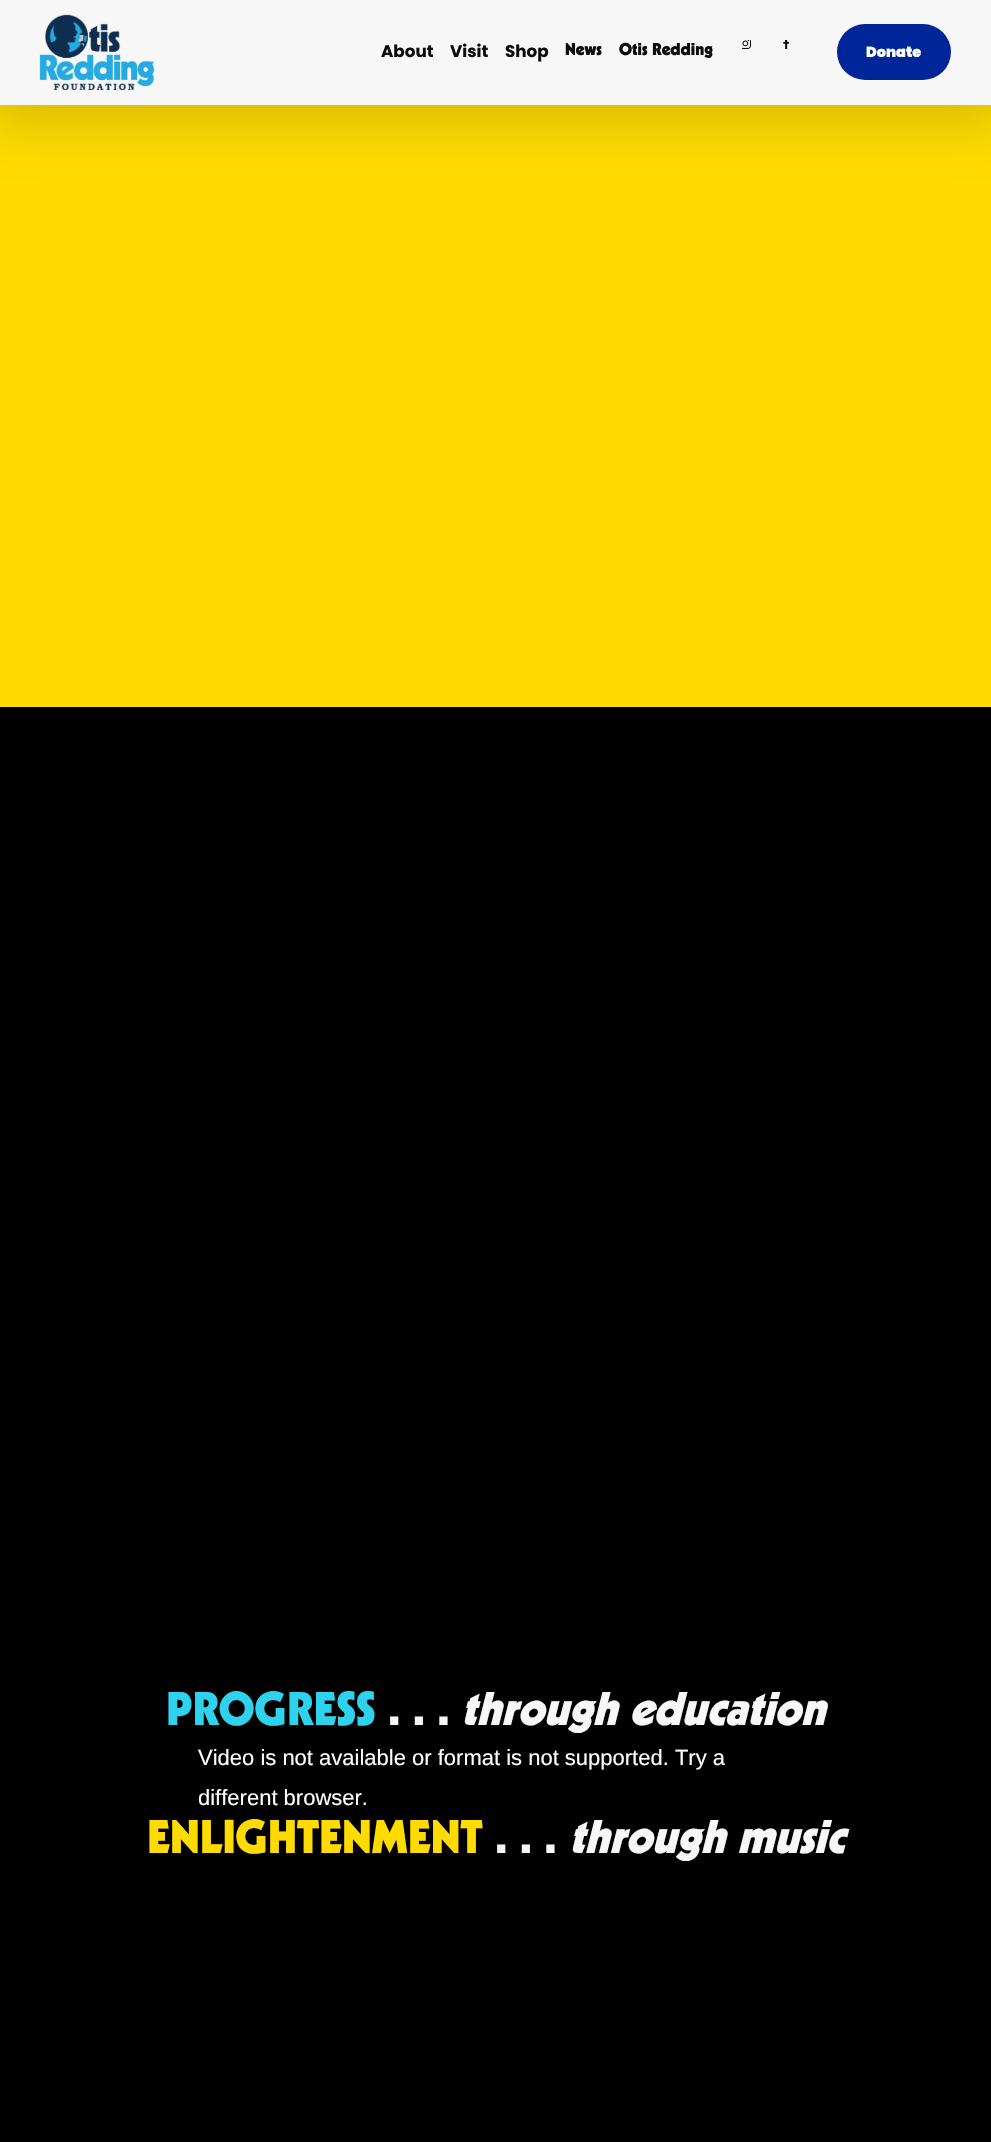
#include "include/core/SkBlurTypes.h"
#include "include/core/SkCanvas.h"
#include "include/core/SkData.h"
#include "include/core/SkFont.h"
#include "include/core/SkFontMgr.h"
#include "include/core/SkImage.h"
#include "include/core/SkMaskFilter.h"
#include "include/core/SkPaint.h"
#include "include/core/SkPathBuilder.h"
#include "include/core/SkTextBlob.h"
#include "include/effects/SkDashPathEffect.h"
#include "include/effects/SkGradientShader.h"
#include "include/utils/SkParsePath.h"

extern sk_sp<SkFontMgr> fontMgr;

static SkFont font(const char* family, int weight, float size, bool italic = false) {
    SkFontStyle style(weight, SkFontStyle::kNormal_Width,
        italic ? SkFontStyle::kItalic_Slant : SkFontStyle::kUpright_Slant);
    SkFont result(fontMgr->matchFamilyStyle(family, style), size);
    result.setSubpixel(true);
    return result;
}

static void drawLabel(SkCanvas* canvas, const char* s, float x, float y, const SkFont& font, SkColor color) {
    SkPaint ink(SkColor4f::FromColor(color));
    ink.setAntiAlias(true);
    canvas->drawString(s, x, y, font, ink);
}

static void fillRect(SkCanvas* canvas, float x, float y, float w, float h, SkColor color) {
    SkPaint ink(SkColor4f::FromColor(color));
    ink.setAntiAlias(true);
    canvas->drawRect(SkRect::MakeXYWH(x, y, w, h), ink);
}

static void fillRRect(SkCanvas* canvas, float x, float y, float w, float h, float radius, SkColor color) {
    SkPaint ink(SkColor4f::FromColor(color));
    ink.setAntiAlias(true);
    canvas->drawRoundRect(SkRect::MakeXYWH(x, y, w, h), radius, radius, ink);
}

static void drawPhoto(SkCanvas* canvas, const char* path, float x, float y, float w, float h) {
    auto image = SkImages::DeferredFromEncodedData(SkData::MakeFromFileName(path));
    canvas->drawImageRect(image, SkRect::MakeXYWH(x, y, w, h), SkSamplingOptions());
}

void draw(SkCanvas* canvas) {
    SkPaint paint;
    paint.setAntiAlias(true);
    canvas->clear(0xFFFFDB00);
    paint.setColor(0xFFDBBC02);
    paint.setMaskFilter(SkMaskFilter::MakeBlur(kNormal_SkBlurStyle, 25.5f));
    canvas->drawRect(SkRect::MakeXYWH(-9, 2, 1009, 123), paint);
    paint.setMaskFilter(nullptr);
    fillRect(canvas, 0, 0, 991, 105, 0xFFF7F7F7);
    drawPhoto(canvas, "assets/img1.png", 39, 14, 116, 76);
    SkFont font1 = font("Poppins", 700, 16.75f);
    drawLabel(canvas, "About", 381, 57, font1, 0xFF0D0D0D);
    drawLabel(canvas, "Visit", 450, 57, font1, 0xFF0D0D0D);
    drawLabel(canvas, "Shop", 505, 57, font1, 0xFF0D0D0D);
    SkFont font2 = font("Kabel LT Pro", 900, 16.75f);
    drawLabel(canvas, "News", 565, 55, font2, 0xFF0D0D0D);
    drawLabel(canvas, "Otis Redding", 619, 55, font2, 0xFF0D0D0D);
    drawPhoto(canvas, "assets/img2.png", 742, 40, 9, 9);
    drawPhoto(canvas, "assets/img3.png", 783, 40, 7, 9);
    fillRRect(canvas, 837, 24, 114, 56, 28, 0xFF002599);
    SkFont font3 = font("Poppins", 900, 14.5f);
    drawLabel(canvas, "Donate", 866, 57, font3, 0xFFFFFFFF);
    fillRect(canvas, 0, 707, 991, 1435, 0xFF000000);
    SkFont font4 = font("Kabel LT Pro", 900, 46);
    drawLabel(canvas, "PROGRESS", 166, 1725, font4, 0xFF2FD2ED);
    drawLabel(canvas, ". . .", 388, 1725, font4, 0xFFF7F7F7);
    SkFont font5 = font("Kabel LT Pro", 900, 46, true);
    drawLabel(canvas, "through education", 461, 1725, font5, 0xFFF7F7F7);
    drawLabel(canvas, "ENLIGHTENMENT", 147, 1853, font4, 0xFFFFDB00);
    drawLabel(canvas, ". . .", 495, 1853, font4, 0xFFF7F7F7);
    drawLabel(canvas, "through music", 569, 1853, font5, 0xFFF7F7F7);
    SkFont font6 = font("Liberation Sans", 400, 22);
    drawLabel(canvas, "Video is not available or format is not supported. Try a", 198, 1765, font6, 0xFFFFFFFF);
    drawLabel(canvas, "different browser.", 198, 1805, font6, 0xFFFFFFFF);
}
